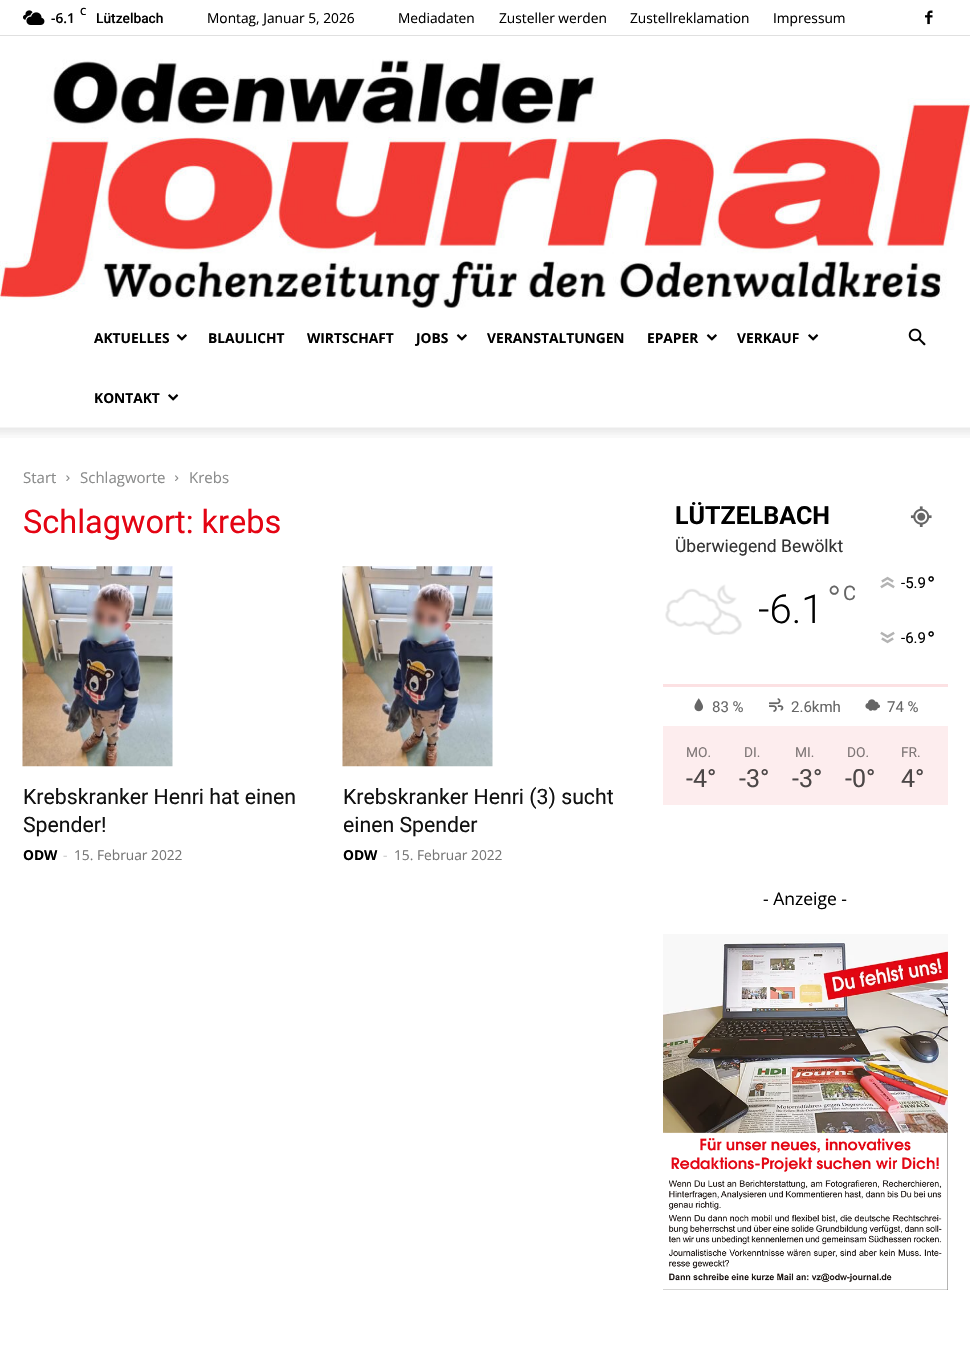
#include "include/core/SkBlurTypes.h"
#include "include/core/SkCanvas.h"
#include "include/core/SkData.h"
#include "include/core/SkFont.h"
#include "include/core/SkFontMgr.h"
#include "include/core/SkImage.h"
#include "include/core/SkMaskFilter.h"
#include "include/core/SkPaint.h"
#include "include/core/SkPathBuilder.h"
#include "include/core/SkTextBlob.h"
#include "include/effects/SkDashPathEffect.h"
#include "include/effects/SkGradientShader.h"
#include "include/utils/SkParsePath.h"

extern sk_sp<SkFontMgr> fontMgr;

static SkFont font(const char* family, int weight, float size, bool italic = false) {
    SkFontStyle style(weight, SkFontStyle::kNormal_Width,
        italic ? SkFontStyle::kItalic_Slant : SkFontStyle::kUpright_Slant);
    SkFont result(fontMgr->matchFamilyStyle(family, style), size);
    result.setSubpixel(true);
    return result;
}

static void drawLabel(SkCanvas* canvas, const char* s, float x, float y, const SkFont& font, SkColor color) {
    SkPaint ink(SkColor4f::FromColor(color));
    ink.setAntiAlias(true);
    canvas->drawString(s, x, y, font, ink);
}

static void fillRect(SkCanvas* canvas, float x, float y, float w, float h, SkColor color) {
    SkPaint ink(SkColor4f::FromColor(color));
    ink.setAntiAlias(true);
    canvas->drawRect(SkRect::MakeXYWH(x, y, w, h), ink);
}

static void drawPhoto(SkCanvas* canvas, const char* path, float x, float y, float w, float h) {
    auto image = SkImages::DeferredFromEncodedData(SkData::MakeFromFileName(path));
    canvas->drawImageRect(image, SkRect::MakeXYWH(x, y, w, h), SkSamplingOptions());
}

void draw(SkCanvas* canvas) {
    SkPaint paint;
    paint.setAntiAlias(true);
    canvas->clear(0xFFFFFFFF);
    fillRect(canvas, 0, 35, 970, 1, 0xFFE0E0E0);
    drawPhoto(canvas, "assets/img1.png", 23, 10, 22, 15);
    SkFont font1 = font("Open Sans", 600, 10);
    drawLabel(canvas, "C", 80, 15, font1, 0xFF000000);
    SkFont font2 = font("Open Sans", 600, 13.75f);
    drawLabel(canvas, "-6.1", 51, 23, font2, 0xFF000000);
    SkFont font3 = font("Roboto", 500, 13.75f);
    drawLabel(canvas, "Lützelbach", 96, 23, font3, 0xFF000000);
    SkFont font4 = font("Open Sans", 400, 13.75f);
    drawLabel(canvas, "Montag, Januar 5, 2026", 207, 23, font4, 0xFF000000);
    drawLabel(canvas, "Mediadaten", 398, 23, font4, 0xFF000000);
    drawLabel(canvas, "Zusteller werden", 499, 23, font4, 0xFF000000);
    drawLabel(canvas, "Zustellreklamation", 630, 23, font4, 0xFF000000);
    drawLabel(canvas, "Impressum", 773, 23, font4, 0xFF000000);
    drawPhoto(canvas, "assets/img2.png", 925, 10, 8, 15);
    drawPhoto(canvas, "assets/img3.png", 0, 59, 970, 249);
    SkFont font5 = font("Open Sans", 700, 13.75f);
    drawLabel(canvas, "AKTUELLES", 94, 343, font5, 0xFF000000);
    drawPhoto(canvas, "assets/img4.png", 176, 334, 11, 7);
    drawLabel(canvas, "BLAULICHT", 208, 343, font5, 0xFF000000);
    drawLabel(canvas, "WIRTSCHAFT", 307, 343, font5, 0xFF000000);
    drawLabel(canvas, "JOBS", 416, 343, font5, 0xFF000000);
    drawPhoto(canvas, "assets/img4.png", 456, 334, 11, 7);
    drawLabel(canvas, "VERANSTALTUNGEN", 487, 343, font5, 0xFF000000);
    drawLabel(canvas, "EPAPER", 647, 343, font5, 0xFF000000);
    drawPhoto(canvas, "assets/img4.png", 706, 334, 11, 7);
    drawLabel(canvas, "VERKAUF", 737, 343, font5, 0xFF000000);
    drawPhoto(canvas, "assets/img5.png", 808, 334, 11, 7);
    drawLabel(canvas, "KONTAKT", 94, 403, font5, 0xFF000000);
    drawPhoto(canvas, "assets/img5.png", 168, 394, 11, 7);
    drawPhoto(canvas, "assets/img6.png", 908, 328, 18, 18);
    drawPhoto(canvas, "assets/img7.png", 0, 427, 970, 11);
    SkFont font6 = font("Open Sans", 400, 15);
    drawLabel(canvas, "Start", 23, 483, font6, 0xFF8A8B8B);
    drawPhoto(canvas, "assets/img8.png", 66, 475, 4, 6);
    drawLabel(canvas, "Schlagworte", 80, 483, font6, 0xFF8A8B8B);
    drawPhoto(canvas, "assets/img9.png", 175, 475, 4, 6);
    drawLabel(canvas, "Krebs", 189, 483, font6, 0xFF8A8B8B);
    SkFont font7 = font("Roboto", 400, 32.5f);
    drawLabel(canvas, "Schlagwort: krebs", 23, 533, font7, 0xFFE40413);
    drawPhoto(canvas, "assets/img10.png", 22, 566, 151, 201);
    SkFont font8 = font("Roboto", 400, 21.25f);
    drawLabel(canvas, "Krebskranker Henri hat einen", 23, 804, font8, 0xFF111111);
    drawLabel(canvas, "Spender!", 23, 832, font8, 0xFF111111);
    drawLabel(canvas, "ODW", 23, 860, font5, 0xFF000000);
    drawLabel(canvas, "-", 63, 860, font4, 0xFFCCCCCC);
    drawLabel(canvas, "15. Februar 2022", 74, 860, font4, 0xFF767676);
    drawPhoto(canvas, "assets/img10.png", 342, 566, 151, 201);
    drawLabel(canvas, "Krebskranker Henri (3) sucht", 343, 804, font8, 0xFF111111);
    drawLabel(canvas, "einen Spender", 343, 832, font8, 0xFF111111);
    drawLabel(canvas, "ODW", 343, 860, font5, 0xFF000000);
    drawLabel(canvas, "-", 383, 860, font4, 0xFFCCCCCC);
    drawLabel(canvas, "15. Februar 2022", 394, 860, font4, 0xFF767676);
    SkFont font9 = font("Roboto", 700, 25);
    drawLabel(canvas, "LÜTZELBACH", 675, 524, font9, 0xFF000000);
    drawPhoto(canvas, "assets/img11.png", 910, 506, 22, 21);
    SkFont font10 = font("Roboto", 400, 17.5f);
    drawLabel(canvas, "Überwiegend Bewölkt", 675, 552, font10, 0xFF333333);
    drawPhoto(canvas, "assets/img12.png", 665, 584, 77, 51);
    SkFont font11 = font("Roboto", 300, 40);
    drawLabel(canvas, "-6.1", 758, 623, font11, 0xFF000000);
    SkFont font12 = font("Roboto", 300, 38);
    drawLabel(canvas, "°", 827, 613, font12, 0xFF666666);
    SkFont font13 = font("Roboto", 400, 20);
    drawLabel(canvas, "C", 843, 600, font13, 0xFF666666);
    drawPhoto(canvas, "assets/img13.png", 880, 576, 15, 13);
    SkFont font14 = font("Roboto", 400, 15);
    drawLabel(canvas, "-5.9", 901, 588, font14, 0xFF000000);
    SkFont font15 = font("Roboto", 400, 22);
    drawLabel(canvas, "°", 927, 592, font15, 0xFF000000);
    drawPhoto(canvas, "assets/img14.png", 880, 631, 15, 13);
    drawLabel(canvas, "-6.9", 901, 643, font14, 0xFF000000);
    drawLabel(canvas, "°", 927, 647, font15, 0xFF000000);
    fillRect(canvas, 663, 684, 285, 3, 0xFFFCE1E3);
    drawPhoto(canvas, "assets/img15.png", 694, 698, 9, 14);
    drawLabel(canvas, "83 %", 712, 712, font14, 0xFF666666);
    drawPhoto(canvas, "assets/img16.png", 769, 698, 15, 14);
    drawLabel(canvas, "2.6kmh", 791, 712, font14, 0xFF666666);
    drawPhoto(canvas, "assets/img17.png", 865, 699, 15, 12);
    drawLabel(canvas, "74 %", 887, 712, font14, 0xFF666666);
    fillRect(canvas, 663, 726, 285, 79, 0xFFFDEDEE);
    SkFont font16 = font("Roboto", 400, 13.75f);
    drawLabel(canvas, "MO.", 686, 757, font16, 0xFF7F7777);
    SkFont font17 = font("Roboto", 400, 25);
    drawLabel(canvas, "-4°", 686, 787, font17, 0xFF4C4747);
    drawLabel(canvas, "DI.", 744, 757, font16, 0xFF7F7777);
    drawLabel(canvas, "-3°", 739, 787, font17, 0xFF4C4747);
    drawLabel(canvas, "MI.", 795, 757, font16, 0xFF7F7777);
    drawLabel(canvas, "-3°", 792, 787, font17, 0xFF4C4747);
    drawLabel(canvas, "DO.", 847, 757, font16, 0xFF7F7777);
    drawLabel(canvas, "-0°", 845, 787, font17, 0xFF4C4747);
    drawLabel(canvas, "FR.", 901, 757, font16, 0xFF7F7777);
    drawLabel(canvas, "4°", 901, 787, font17, 0xFF4C4747);
    SkFont font18 = font("Open Sans", 400, 17.5f);
    drawLabel(canvas, "- Anzeige -", 763, 905, font18, 0xFF000000);
    drawPhoto(canvas, "assets/img18.png", 663, 934, 285, 356);
}
